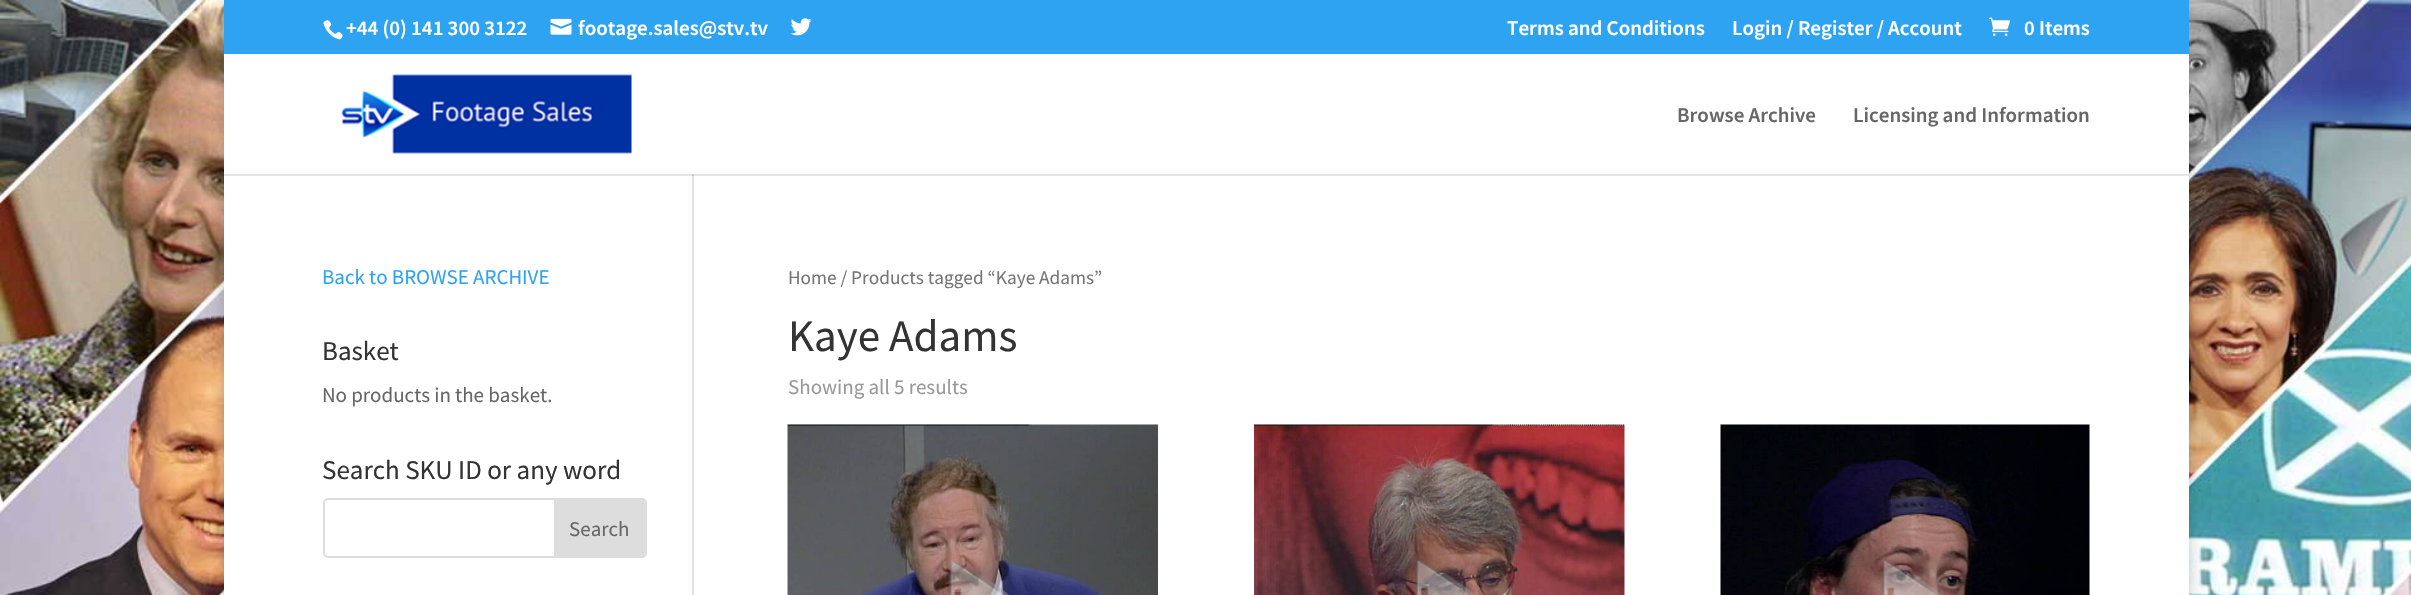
#include "include/core/SkBlurTypes.h"
#include "include/core/SkCanvas.h"
#include "include/core/SkData.h"
#include "include/core/SkFont.h"
#include "include/core/SkFontMgr.h"
#include "include/core/SkImage.h"
#include "include/core/SkMaskFilter.h"
#include "include/core/SkPaint.h"
#include "include/core/SkPathBuilder.h"
#include "include/core/SkTextBlob.h"
#include "include/effects/SkDashPathEffect.h"
#include "include/effects/SkGradientShader.h"
#include "include/utils/SkParsePath.h"

extern sk_sp<SkFontMgr> fontMgr;

static SkFont font(const char* family, int weight, float size, bool italic = false) {
    SkFontStyle style(weight, SkFontStyle::kNormal_Width,
        italic ? SkFontStyle::kItalic_Slant : SkFontStyle::kUpright_Slant);
    SkFont result(fontMgr->matchFamilyStyle(family, style), size);
    result.setSubpixel(true);
    return result;
}

static void drawLabel(SkCanvas* canvas, const char* s, float x, float y, const SkFont& font, SkColor color) {
    SkPaint ink(SkColor4f::FromColor(color));
    ink.setAntiAlias(true);
    canvas->drawString(s, x, y, font, ink);
}

static void fillRect(SkCanvas* canvas, float x, float y, float w, float h, SkColor color) {
    SkPaint ink(SkColor4f::FromColor(color));
    ink.setAntiAlias(true);
    canvas->drawRect(SkRect::MakeXYWH(x, y, w, h), ink);
}

static void drawPhoto(SkCanvas* canvas, const char* path, float x, float y, float w, float h) {
    auto image = SkImages::DeferredFromEncodedData(SkData::MakeFromFileName(path));
    canvas->drawImageRect(image, SkRect::MakeXYWH(x, y, w, h), SkSamplingOptions());
}

static SkPath parsePath(const char* data, bool evenOdd = false) {
    SkPath result = *SkParsePath::FromSVGString(data);
    if (evenOdd) result.setFillType(SkPathFillType::kEvenOdd);
    return result;
}

void draw(SkCanvas* canvas) {
    SkPaint paint;
    paint.setAntiAlias(true);
    canvas->clear(0xFFFFFFFF);
    drawPhoto(canvas, "assets/img1.png", 0, 0, 2411, 595);
    paint.setColor(0x33000000);
    paint.setMaskFilter(SkMaskFilter::MakeBlur(kNormal_SkBlurStyle, 7.5f));
    canvas->drawRect(SkRect::MakeXYWH(224, 0, 1965, 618), paint);
    paint.setMaskFilter(nullptr);
    fillRect(canvas, 224, 0, 1965, 54, 0xFF2EA3F2);
    drawPhoto(canvas, "assets/img2.png", 323, 20, 20, 20);
    SkFont font1 = font("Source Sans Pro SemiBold", 600, 21);
    drawLabel(canvas, "+44 (0) 141 300 3122", 346, 35, font1, 0xFFFFFFFF);
    drawPhoto(canvas, "assets/img3.png", 550, 18, 22, 17);
    drawLabel(canvas, "footage.sales@stv.tv", 578, 35, font1, 0xFFFFFFFF);
    drawPhoto(canvas, "assets/img4.png", 790, 18, 22, 18);
    drawLabel(canvas, "Terms and Conditions", 1507, 35, font1, 0xFFFFFFFF);
    drawLabel(canvas, "Login / Register / Account", 1732, 35, font1, 0xFFFFFFFF);
    drawPhoto(canvas, "assets/img5.png", 1989, 17, 21, 19);
    drawLabel(canvas, "0 Items", 2024, 35, font1, 0xFFFFFFFF);
    fillRect(canvas, 224, 174, 1965, 421, 0xFFFFFFFF);
    fillRect(canvas, 692, 174, 2, 421, 0xFFE2E2E2);
    paint.setColor(0x1A000000);
    canvas->drawPath(parsePath("M224 174V176H2189V56H2188V174Z"), paint);
    fillRect(canvas, 224, 54, 1965, 120, 0xFFFFFFFF);
    drawPhoto(canvas, "assets/img6.png", 341, 74, 291, 80);
    drawLabel(canvas, "Browse Archive", 1677, 122, font1, 0xFF666666);
    drawLabel(canvas, "Licensing and Information", 1853, 122, font1, 0xFF666666);
    SkFont font2 = font("Source Sans Pro", 400, 21);
    drawLabel(canvas, "Back to BROWSE ARCHIVE", 322, 284, font2, 0xFF2EA3F2);
    SkFont font3 = font("Source Sans Pro", 400, 27);
    drawLabel(canvas, "Basket", 322, 360, font3, 0xFF333333);
    drawLabel(canvas, "No products in the basket.", 322, 402, font2, 0xFF666666);
    drawLabel(canvas, "Search SKU ID or any word", 322, 479, font3, 0xFF333333);
    paint.setStroke(true);
    paint.setStrokeWidth(2);
    paint.setColor(0xFFDDDDDD);
    canvas->drawRoundRect(SkRect::MakeXYWH(324, 499, 322, 58), 4, 4, paint);
    paint.setStroke(false);
    canvas->drawPath(parsePath("M555 499H642C644 499 646 501 646 503V553C646 555 644 557 642 557H555Z"), paint);
    paint.setStroke(true);
    canvas->drawPath(parsePath("M555 499H642C644 499 646 501 646 503V553C646 555 644 557 642 557H555Z"), paint);
    drawLabel(canvas, "Search", 569, 536, font2, 0xFF666666);
    SkFont font4 = font("Source Sans Pro", 400, 19.3f);
    drawLabel(canvas, "Home / Products tagged “Kaye Adams”", 788, 284, font4, 0xFF767676);
    SkFont font5 = font("Source Sans Pro", 400, 45);
    drawLabel(canvas, "Kaye Adams", 788, 351, font5, 0xFF333333);
    drawLabel(canvas, "Showing all 5 results", 788, 394, font2, 0xFF999999);
    drawPhoto(canvas, "assets/img7.png", 787, 424, 371, 171);
    drawPhoto(canvas, "assets/img8.png", 1254, 424, 371, 171);
    drawPhoto(canvas, "assets/img9.png", 1720, 424, 370, 171);
}
